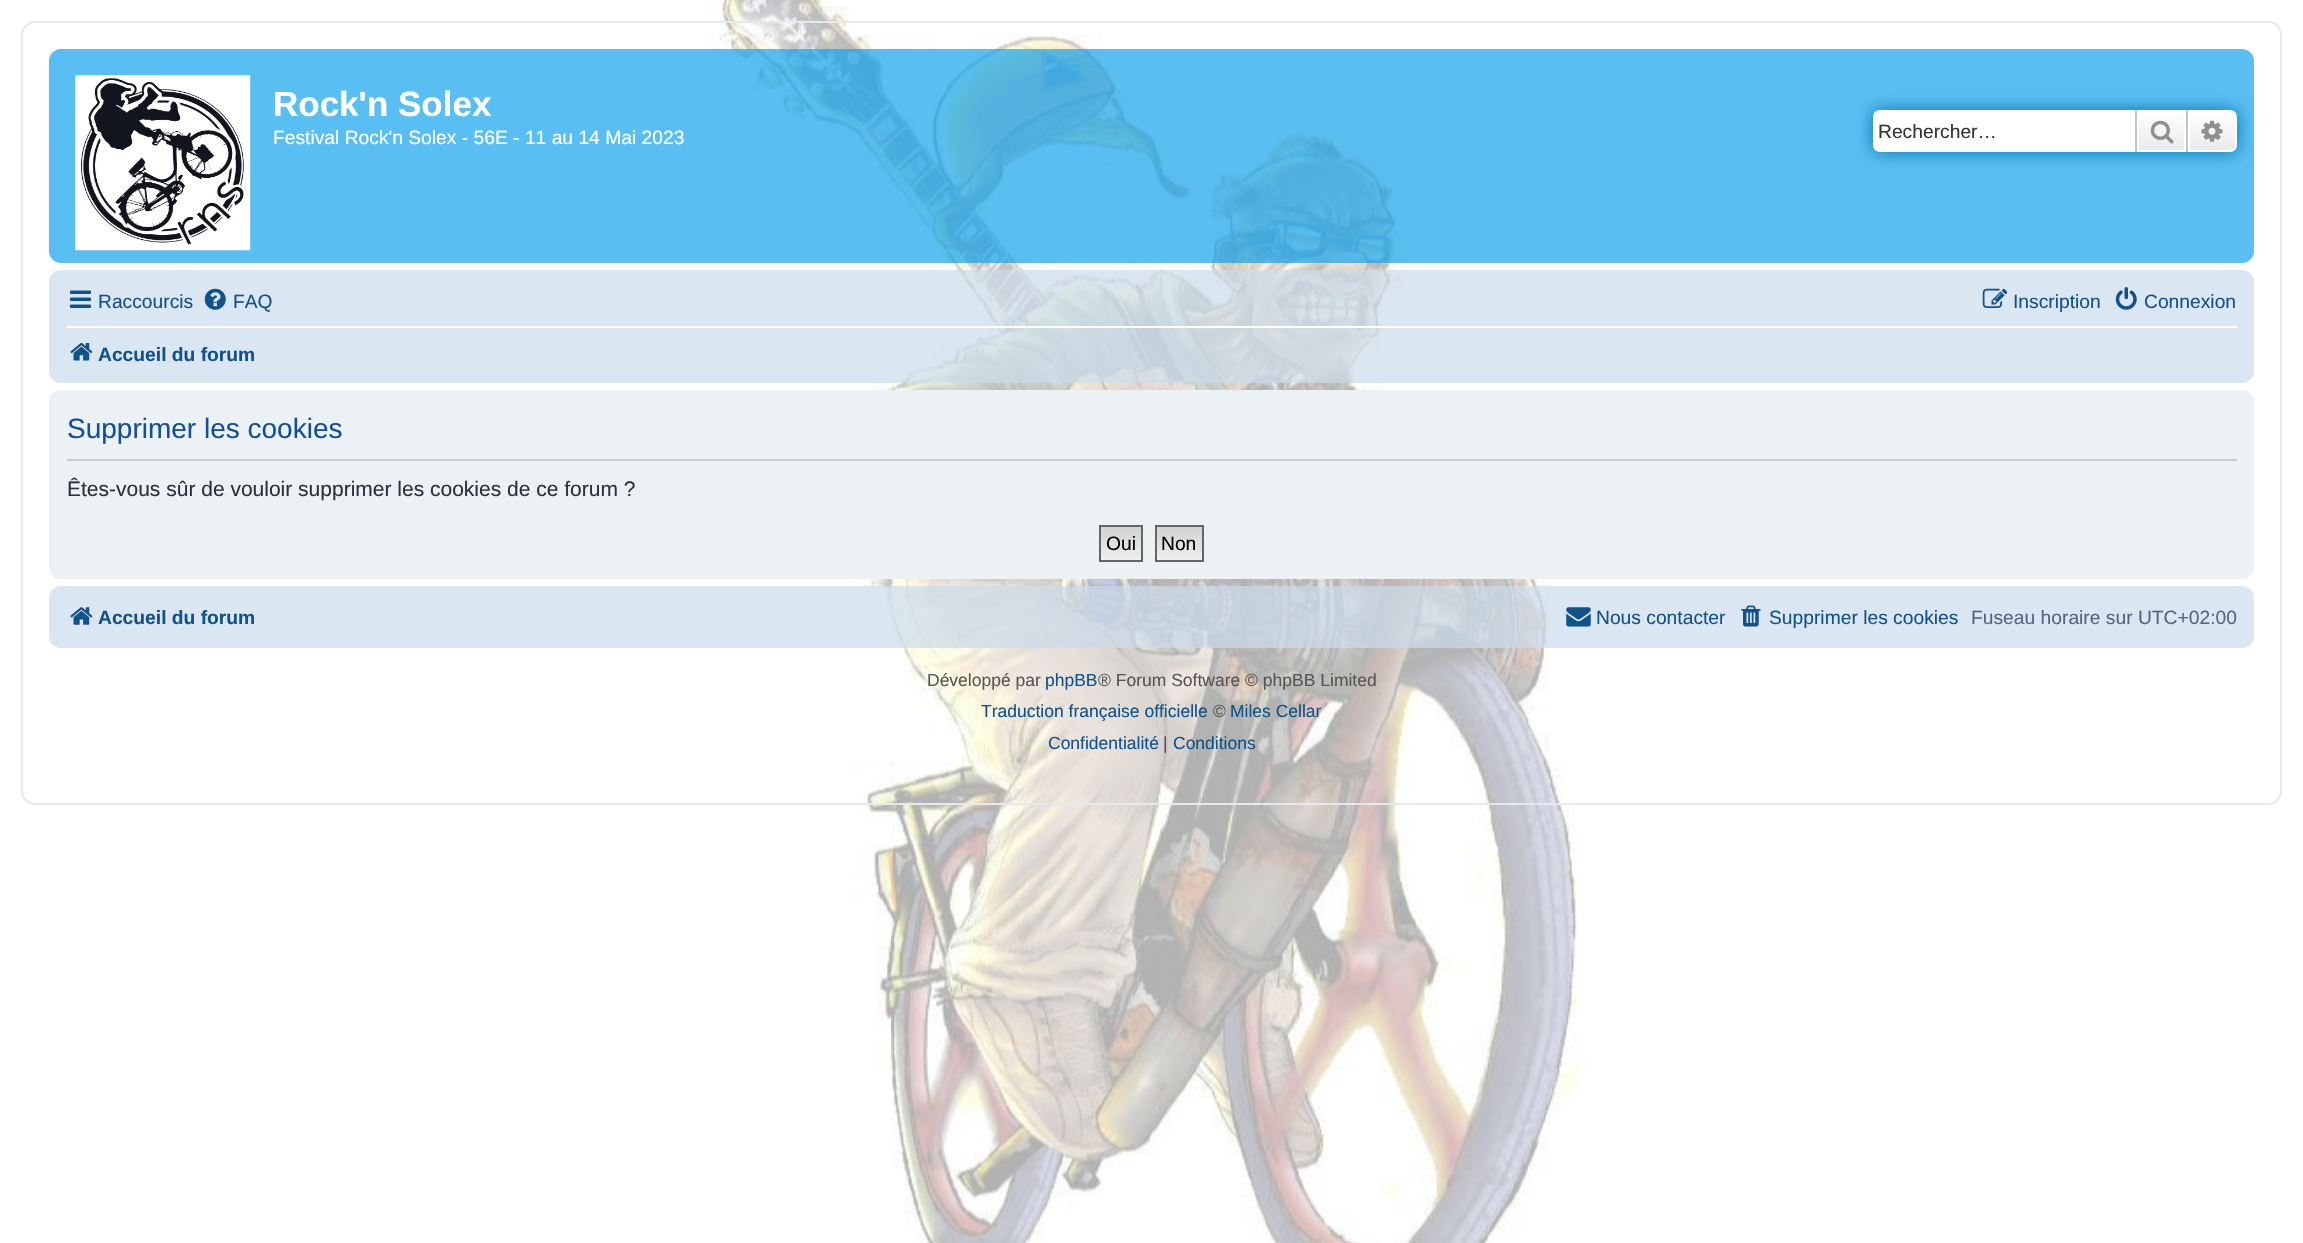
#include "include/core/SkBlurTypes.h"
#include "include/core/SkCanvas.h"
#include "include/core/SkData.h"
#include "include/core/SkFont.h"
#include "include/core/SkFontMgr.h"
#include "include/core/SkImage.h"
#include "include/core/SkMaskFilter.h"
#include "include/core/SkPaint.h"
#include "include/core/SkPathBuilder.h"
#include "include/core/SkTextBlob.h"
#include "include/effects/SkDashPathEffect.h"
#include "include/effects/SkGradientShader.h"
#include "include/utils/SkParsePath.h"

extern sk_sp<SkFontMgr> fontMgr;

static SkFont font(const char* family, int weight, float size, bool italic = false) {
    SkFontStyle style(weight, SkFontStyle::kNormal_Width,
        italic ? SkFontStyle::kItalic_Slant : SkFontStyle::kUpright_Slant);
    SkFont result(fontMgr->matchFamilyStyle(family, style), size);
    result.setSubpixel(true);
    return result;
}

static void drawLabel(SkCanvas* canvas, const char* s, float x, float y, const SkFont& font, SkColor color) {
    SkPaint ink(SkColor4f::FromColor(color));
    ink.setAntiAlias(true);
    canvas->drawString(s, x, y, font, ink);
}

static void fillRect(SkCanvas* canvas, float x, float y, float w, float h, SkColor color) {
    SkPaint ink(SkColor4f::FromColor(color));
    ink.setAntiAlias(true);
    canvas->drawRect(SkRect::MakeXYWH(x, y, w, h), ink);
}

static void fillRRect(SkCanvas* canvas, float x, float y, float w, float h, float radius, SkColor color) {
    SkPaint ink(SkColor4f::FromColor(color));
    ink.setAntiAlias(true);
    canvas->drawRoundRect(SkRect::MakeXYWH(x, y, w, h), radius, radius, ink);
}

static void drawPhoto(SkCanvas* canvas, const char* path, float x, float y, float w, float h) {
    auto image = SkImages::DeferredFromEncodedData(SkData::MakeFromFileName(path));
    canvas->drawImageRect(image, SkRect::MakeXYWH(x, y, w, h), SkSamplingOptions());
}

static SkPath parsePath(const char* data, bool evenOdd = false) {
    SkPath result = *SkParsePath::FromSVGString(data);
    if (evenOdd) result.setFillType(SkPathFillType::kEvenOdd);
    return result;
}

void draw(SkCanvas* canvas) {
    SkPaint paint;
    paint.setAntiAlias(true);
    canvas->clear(0xFFFFFFFF);
    drawPhoto(canvas, "assets/img1.png", 709, 0, 878, 1243);
    paint.setStroke(true);
    paint.setStrokeWidth(2);
    paint.setColor(0xFFE6E9ED);
    canvas->drawRoundRect(SkRect::MakeXYWH(22, 22, 2259, 782), 13, 13, paint);
    fillRRect(canvas, 49, 49, 2205, 214, 12, 0xB312A3EB);
    drawPhoto(canvas, "assets/img2.png", 75, 75, 176, 176);
    SkFont font1 = font("Liberation Sans", 700, 35);
    drawLabel(canvas, "Rock'n Solex", 273, 116, font1, 0xFFFFFFFF);
    SkFont font2 = font("Liberation Sans", 400, 19.25f);
    drawLabel(canvas, "Festival Rock'n Solex - 56E - 11 au 14 Mai 2023", 273, 144, font2, 0xFFFFFFFF);
    paint.setStroke(false);
    paint.setColor(0xFF0075B0);
    paint.setMaskFilter(SkMaskFilter::MakeBlur(kNormal_SkBlurStyle, 9));
    canvas->drawRoundRect(SkRect::MakeXYWH(1873, 110, 364, 42), 7, 7, paint);
    paint.setMaskFilter(nullptr);
    paint.setColor(0xFFFFFFFF);
    canvas->drawPath(parsePath("M1880 110H2135V152H1880C1876 152 1873 149 1873 145V117C1873 113 1876 110 1880 110Z"), paint);
    drawLabel(canvas, "Rechercher…", 1878, 138, font2, 0xFF333333);
    {
        const SkColor colors[] = {0xFFFFFFFF, 0xFFE9E9E9};
        const float stops[] = {0, 1};
        const SkPoint ends[] = {{2161, 110}, {2161, 152}};
        paint.setShader(SkGradientShader::MakeLinear(ends, colors, stops, 2, SkTileMode::kClamp));
        paint.setAlpha(255);
    }
    canvas->drawRect(SkRect::MakeXYWH(2139, 112, 45, 38), paint);
    paint.setStroke(true);
    paint.setShader(nullptr);
    paint.setColor(0xFFFFFFFF);
    canvas->drawRect(SkRect::MakeXYWH(2138, 111, 47, 40), paint);
    fillRect(canvas, 2186, 110, 2, 42, 0xFFC7C3BF);
    fillRect(canvas, 2135, 110, 2, 42, 0xFFC7C3BF);
    drawPhoto(canvas, "assets/img3.png", 2150, 120, 24, 24);
    paint.setStroke(false);
    {
        const SkColor colors[] = {0xFFFFFFFF, 0xFFE9E9E9};
        const float stops[] = {0, 1};
        const SkPoint ends[] = {{2212, 110}, {2212, 152}};
        paint.setShader(SkGradientShader::MakeLinear(ends, colors, stops, 2, SkTileMode::kClamp));
        paint.setAlpha(255);
    }
    canvas->drawPath(parsePath("M2189 111H2230C2233.5 111 2236 113.5 2236 117V145C2236 148.5 2233.5 151 2230 151H2189Z"), paint);
    paint.setStroke(true);
    paint.setShader(nullptr);
    paint.setColor(0xFFFFFFFF);
    canvas->drawPath(parsePath("M2189 111H2230C2233.5 111 2236 113.5 2236 117V145C2236 148.5 2233.5 151 2230 151H2189Z"), paint);
    drawPhoto(canvas, "assets/img4.png", 2201, 120, 22, 22);
    fillRRect(canvas, 49, 270, 2205, 113, 12, 0xB3CADCEB);
    drawPhoto(canvas, "assets/img5.png", 70, 290, 21, 18);
    drawLabel(canvas, "Raccourcis", 98, 308, font2, 0xFF105289);
    drawPhoto(canvas, "assets/img6.png", 204, 288, 22, 22);
    drawLabel(canvas, "FAQ", 233, 308, font2, 0xFF105289);
    drawPhoto(canvas, "assets/img7.png", 1982, 288, 26, 20);
    drawLabel(canvas, "Inscription", 2013, 308, font2, 0xFF105289);
    drawPhoto(canvas, "assets/img8.png", 2115, 287, 22, 23);
    drawLabel(canvas, "Connexion", 2144, 308, font2, 0xFF105289);
    fillRect(canvas, 67, 326, 2170, 2, 0xFFFFFFFF);
    drawPhoto(canvas, "assets/img9.png", 70, 343, 23, 18);
    SkFont font3 = font("Liberation Sans", 700, 19.25f);
    drawLabel(canvas, "Accueil du forum", 98, 361, font3, 0xFF105289);
    fillRRect(canvas, 49, 390, 2205, 189, 12, 0xFFECF1F3);
    fillRect(canvas, 67, 459, 2170, 2, 0xFFCCCCCC);
    SkFont font4 = font("Liberation Sans", 400, 28);
    drawLabel(canvas, "Supprimer les cookies", 67, 438, font4, 0xFF115098);
    SkFont font5 = font("Liberation Sans", 400, 21);
    drawLabel(canvas, "Êtes-vous sûr de vouloir supprimer les cookies de ce forum ?", 67, 496, font5, 0xFF28313F);
    paint.setStroke(false);
    {
        const SkColor colors[] = {0xFFD2D2D2, 0xFFEFEFEF};
        const float stops[] = {0, 1};
        const SkPoint ends[] = {{1121, 527}, {1121, 560}};
        paint.setShader(SkGradientShader::MakeLinear(ends, colors, stops, 2, SkTileMode::kClamp));
        paint.setAlpha(255);
    }
    canvas->drawRect(SkRect::MakeXYWH(1101, 527, 40, 33), paint);
    paint.setStroke(true);
    paint.setShader(nullptr);
    paint.setColor(0xFF666666);
    canvas->drawRect(SkRect::MakeXYWH(1100, 526, 42, 35), paint);
    drawLabel(canvas, "Oui", 1106, 550, font2, 0xFF000000);
    paint.setStroke(false);
    {
        const SkColor colors[] = {0xFFD2D2D2, 0xFFEFEFEF};
        const float stops[] = {0, 1};
        const SkPoint ends[] = {{1180, 527}, {1180, 560}};
        paint.setShader(SkGradientShader::MakeLinear(ends, colors, stops, 2, SkTileMode::kClamp));
        paint.setAlpha(255);
    }
    canvas->drawRect(SkRect::MakeXYWH(1157, 527, 45, 33), paint);
    paint.setStroke(true);
    paint.setShader(nullptr);
    paint.setColor(0xFF666666);
    canvas->drawRect(SkRect::MakeXYWH(1156, 526, 47, 35), paint);
    drawLabel(canvas, "Non", 1161, 550, font2, 0xFF000000);
    fillRRect(canvas, 49, 586, 2205, 62, 12, 0xB3CADCEB);
    drawPhoto(canvas, "assets/img10.png", 70, 607, 23, 18);
    drawLabel(canvas, "Accueil du forum", 98, 624, font3, 0xFF105289);
    drawPhoto(canvas, "assets/img11.png", 1566, 607, 25, 20);
    drawLabel(canvas, "Nous contacter", 1596, 624, font2, 0xFF105289);
    drawPhoto(canvas, "assets/img12.png", 1741, 605, 20, 22);
    drawLabel(canvas, "Supprimer les cookies", 1769, 624, font2, 0xFF105289);
    drawLabel(canvas, "Fuseau horaire sur UTC+02:00", 1971, 624, font2, 0xFF536482);
    SkFont font6 = font("Liberation Sans", 400, 17.5f);
    drawLabel(canvas, "Développé par", 927, 686, font6, 0xFF555555);
    drawLabel(canvas, "phpBB", 1045, 686, font6, 0xFF105289);
    drawLabel(canvas, "® Forum Software © phpBB Limited", 1098, 686, font6, 0xFF555555);
    drawLabel(canvas, "Traduction française officielle", 981, 717, font6, 0xFF105289);
    drawLabel(canvas, "©", 1213, 717, font6, 0xFF555555);
    drawLabel(canvas, "Miles Cellar", 1230, 717, font6, 0xFF105289);
    drawLabel(canvas, "Confidentialité", 1048, 749, font6, 0xFF105289);
    drawLabel(canvas, "|", 1163, 749, font6, 0xFF555555);
    drawLabel(canvas, "Conditions", 1173, 749, font6, 0xFF105289);
}
